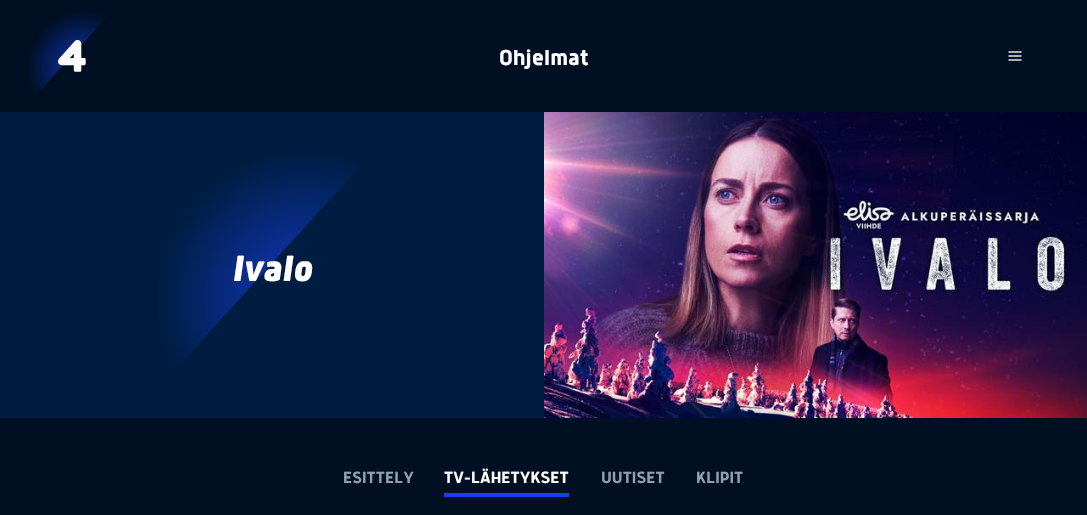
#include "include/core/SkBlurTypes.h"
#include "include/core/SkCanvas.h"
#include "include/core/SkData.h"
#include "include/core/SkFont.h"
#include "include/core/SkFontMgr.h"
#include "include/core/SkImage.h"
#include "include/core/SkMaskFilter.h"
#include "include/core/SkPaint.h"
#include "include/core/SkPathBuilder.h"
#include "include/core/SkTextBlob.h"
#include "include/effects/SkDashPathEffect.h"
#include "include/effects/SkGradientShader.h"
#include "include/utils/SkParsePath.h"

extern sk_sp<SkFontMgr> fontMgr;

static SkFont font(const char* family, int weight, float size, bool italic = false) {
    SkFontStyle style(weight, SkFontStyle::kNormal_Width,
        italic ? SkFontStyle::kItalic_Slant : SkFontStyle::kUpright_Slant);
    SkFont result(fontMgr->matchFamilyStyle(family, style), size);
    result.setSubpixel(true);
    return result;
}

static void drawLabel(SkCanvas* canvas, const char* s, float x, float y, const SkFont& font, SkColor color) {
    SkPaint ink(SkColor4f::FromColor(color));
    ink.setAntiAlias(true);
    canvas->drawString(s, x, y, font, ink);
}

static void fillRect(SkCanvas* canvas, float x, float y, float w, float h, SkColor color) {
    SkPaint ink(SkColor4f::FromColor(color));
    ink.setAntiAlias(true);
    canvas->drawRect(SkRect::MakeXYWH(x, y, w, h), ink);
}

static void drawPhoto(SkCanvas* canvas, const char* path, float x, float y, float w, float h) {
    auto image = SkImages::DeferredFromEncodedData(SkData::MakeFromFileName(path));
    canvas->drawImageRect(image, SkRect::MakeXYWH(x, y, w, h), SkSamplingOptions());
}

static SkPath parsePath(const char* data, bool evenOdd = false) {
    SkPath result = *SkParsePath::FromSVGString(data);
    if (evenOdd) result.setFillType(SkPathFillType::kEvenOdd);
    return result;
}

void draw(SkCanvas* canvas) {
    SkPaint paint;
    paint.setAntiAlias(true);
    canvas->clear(0xFF000F22);
    {
        const SkColor colors[] = {0xFF1135BC, 0xFF000F22};
        const float stops[] = {0, 0.7f};
        SkMatrix m = SkMatrix::Translate(84, 69).preScale(82, 83);
        paint.setShader(SkGradientShader::MakeRadial({0, 0}, 1, colors, stops, 2, SkTileMode::kClamp, 0, &m));
        paint.setAlpha(255);
    }
    canvas->drawPath(parsePath("M26 10H113L28 104H26Z"), paint);
    drawPhoto(canvas, "assets/img1.png", 58, 40, 28, 32);
    SkFont font1 = font("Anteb", 700, 24);
    drawLabel(canvas, "Ohjelmat", 499, 65, font1, 0xFFFFFFFF);
    drawPhoto(canvas, "assets/img2.png", 1008, 51, 14, 10);
    fillRect(canvas, 0, 112, 544, 306, 0xFF001D41);
    {
        const SkColor colors[] = {0xFF1138C4, 0xFF001D41};
        const float stops[] = {0, 1};
        paint.setShader(SkGradientShader::MakeRadial({304, 298}, 147, colors, stops, 2, SkTileMode::kClamp));
        paint.setAlpha(255);
    }
    canvas->drawPath(parsePath("M149 139H385L162 384H149Z"), paint);
    SkFont font2 = font("Anteb", 900, 40, true);
    drawLabel(canvas, "Ivalo", 232, 281, font2, 0xFFFFFFFF);
    drawPhoto(canvas, "assets/img3.png", 544, 112, 543, 306);
    SkFont font3 = font("Anteb", 700, 18);
    drawLabel(canvas, "ESITTELY", 343, 483, font3, 0xFF939FB3);
    fillRect(canvas, 444, 493, 125, 4, 0xFF1741EF);
    drawLabel(canvas, "TV-LÄHETYKSET", 444, 483, font3, 0xFFFFFFFF);
    drawLabel(canvas, "UUTISET", 601, 483, font3, 0xFF939FB3);
    drawLabel(canvas, "KLIPIT", 696, 483, font3, 0xFF939FB3);
}
